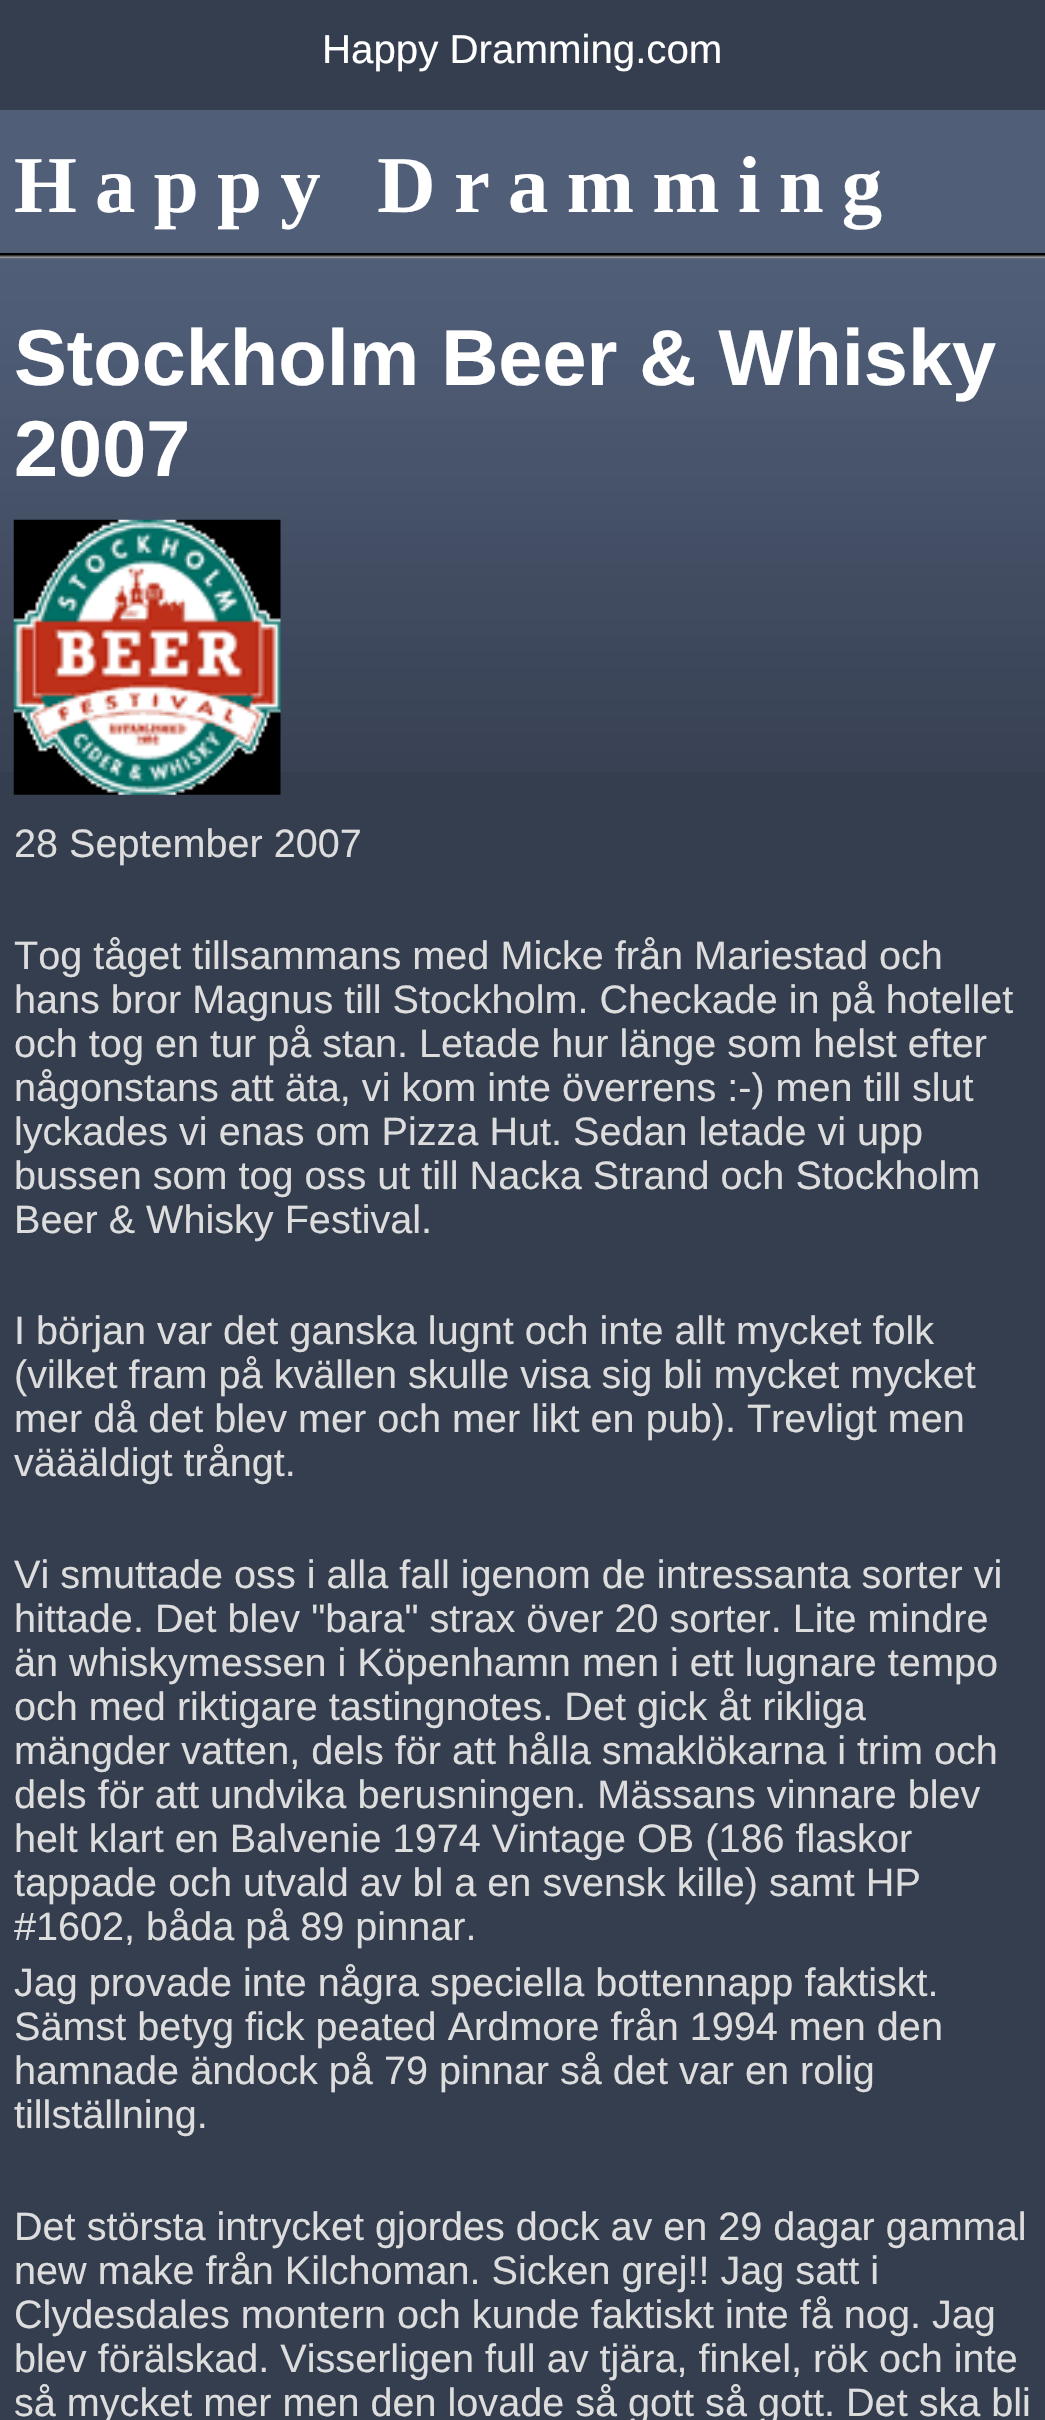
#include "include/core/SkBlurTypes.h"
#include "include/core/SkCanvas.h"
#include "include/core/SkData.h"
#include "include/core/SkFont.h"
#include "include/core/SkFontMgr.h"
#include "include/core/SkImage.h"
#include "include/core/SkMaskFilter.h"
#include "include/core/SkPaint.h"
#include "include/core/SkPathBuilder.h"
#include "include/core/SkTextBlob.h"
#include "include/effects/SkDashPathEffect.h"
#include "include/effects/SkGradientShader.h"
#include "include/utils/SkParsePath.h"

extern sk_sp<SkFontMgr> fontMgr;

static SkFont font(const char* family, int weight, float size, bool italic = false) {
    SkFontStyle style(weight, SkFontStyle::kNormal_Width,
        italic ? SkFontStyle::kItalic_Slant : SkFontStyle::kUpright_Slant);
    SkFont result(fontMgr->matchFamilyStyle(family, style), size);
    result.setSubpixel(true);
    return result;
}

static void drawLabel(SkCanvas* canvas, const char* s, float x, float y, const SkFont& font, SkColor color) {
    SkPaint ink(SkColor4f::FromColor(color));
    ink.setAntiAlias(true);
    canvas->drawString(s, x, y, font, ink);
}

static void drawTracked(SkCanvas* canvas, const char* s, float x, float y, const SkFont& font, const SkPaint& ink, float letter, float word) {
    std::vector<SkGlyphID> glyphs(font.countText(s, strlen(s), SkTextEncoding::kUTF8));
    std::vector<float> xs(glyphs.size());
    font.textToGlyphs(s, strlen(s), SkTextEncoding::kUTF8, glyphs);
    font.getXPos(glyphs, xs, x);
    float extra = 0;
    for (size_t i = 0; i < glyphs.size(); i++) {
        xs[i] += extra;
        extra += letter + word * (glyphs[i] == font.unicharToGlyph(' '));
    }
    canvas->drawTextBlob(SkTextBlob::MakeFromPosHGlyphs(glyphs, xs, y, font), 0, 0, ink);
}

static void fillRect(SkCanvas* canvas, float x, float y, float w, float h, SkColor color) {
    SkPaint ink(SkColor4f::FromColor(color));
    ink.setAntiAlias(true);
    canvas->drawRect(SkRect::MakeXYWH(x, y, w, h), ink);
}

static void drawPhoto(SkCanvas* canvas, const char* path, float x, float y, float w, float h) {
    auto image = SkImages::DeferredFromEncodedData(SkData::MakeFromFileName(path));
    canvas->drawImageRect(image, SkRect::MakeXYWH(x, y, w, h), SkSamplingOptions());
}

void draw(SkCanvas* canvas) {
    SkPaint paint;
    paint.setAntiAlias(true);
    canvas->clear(0xFF353E4F);
    SkFont font1 = font("Liberation Sans", 400, 40.25f);
    drawLabel(canvas, "Happy Dramming.com", 322, 63, font1, 0xFFFFFFFF);
    fillRect(canvas, 0, 110, 1045, 149, 0xFF505E78);
    drawPhoto(canvas, "assets/img1.png", 0, 253, 1045, 6);
    SkFont font2 = font("Liberation Serif", 700, 80.75f);
    paint.setColor(0xFFFFFFFF);
    drawTracked(canvas, "Happy Dramming", 14, 212, font2, paint, 18.3f, 0);
    drawPhoto(canvas, "assets/img2.png", 0, 258, 1045, 514);
    SkFont font3 = font("Liberation Sans", 700, 79.25f);
    drawLabel(canvas, "Stockholm Beer & Whisky", 14, 385, font3, 0xFFFFFFFF);
    drawLabel(canvas, "2007", 14, 476, font3, 0xFFFFFFFF);
    drawPhoto(canvas, "assets/img3.png", 13, 519, 268, 276);
    SkFont font4 = font("Liberation Sans", 400, 39.6f);
    drawLabel(canvas, "28 September 2007", 14, 857, font4, 0xFFDDDDDD);
    drawLabel(canvas, "Tog tåget tillsammans med Micke från Mariestad och", 14, 969, font4, 0xFFDDDDDD);
    drawLabel(canvas, "hans bror Magnus till Stockholm. Checkade in på hotellet", 14, 1013, font4, 0xFFDDDDDD);
    drawLabel(canvas, "och tog en tur på stan. Letade hur länge som helst efter", 14, 1057, font4, 0xFFDDDDDD);
    drawLabel(canvas, "någonstans att äta, vi kom inte överrens :-) men till slut", 14, 1101, font4, 0xFFDDDDDD);
    drawLabel(canvas, "lyckades vi enas om Pizza Hut. Sedan letade vi upp", 14, 1145, font4, 0xFFDDDDDD);
    drawLabel(canvas, "bussen som tog oss ut till Nacka Strand och Stockholm", 14, 1189, font4, 0xFFDDDDDD);
    drawLabel(canvas, "Beer & Whisky Festival.", 14, 1233, font4, 0xFFDDDDDD);
    drawLabel(canvas, "I början var det ganska lugnt och inte allt mycket folk", 14, 1344, font4, 0xFFDDDDDD);
    drawLabel(canvas, "(vilket fram på kvällen skulle visa sig bli mycket mycket", 14, 1388, font4, 0xFFDDDDDD);
    drawLabel(canvas, "mer då det blev mer och mer likt en pub). Trevligt men", 14, 1432, font4, 0xFFDDDDDD);
    drawLabel(canvas, "väääldigt trångt.", 14, 1476, font4, 0xFFDDDDDD);
    drawLabel(canvas, "Vi smuttade oss i alla fall igenom de intressanta sorter vi", 14, 1588, font4, 0xFFDDDDDD);
    drawLabel(canvas, "hittade. Det blev \"bara\" strax över 20 sorter. Lite mindre", 14, 1632, font4, 0xFFDDDDDD);
    drawLabel(canvas, "än whiskymessen i Köpenhamn men i ett lugnare tempo", 14, 1676, font4, 0xFFDDDDDD);
    drawLabel(canvas, "och med riktigare tastingnotes. Det gick åt rikliga", 14, 1720, font4, 0xFFDDDDDD);
    drawLabel(canvas, "mängder vatten, dels för att hålla smaklökarna i trim och", 14, 1764, font4, 0xFFDDDDDD);
    drawLabel(canvas, "dels för att undvika berusningen. Mässans vinnare blev", 14, 1808, font4, 0xFFDDDDDD);
    drawLabel(canvas, "helt klart en Balvenie 1974 Vintage OB (186 flaskor", 14, 1852, font4, 0xFFDDDDDD);
    drawLabel(canvas, "tappade och utvald av bl a en svensk kille) samt HP", 14, 1896, font4, 0xFFDDDDDD);
    drawLabel(canvas, "#1602, båda på 89 pinnar.", 14, 1940, font4, 0xFFDDDDDD);
    drawLabel(canvas, "Jag provade inte några speciella bottennapp faktiskt.", 14, 1996, font4, 0xFFDDDDDD);
    drawLabel(canvas, "Sämst betyg fick peated Ardmore från 1994 men den", 14, 2040, font4, 0xFFDDDDDD);
    drawLabel(canvas, "hamnade ändock på 79 pinnar så det var en rolig", 14, 2084, font4, 0xFFDDDDDD);
    drawLabel(canvas, "tillställning.", 14, 2128, font4, 0xFFDDDDDD);
    drawLabel(canvas, "Det största intrycket gjordes dock av en 29 dagar gammal", 14, 2240, font4, 0xFFDDDDDD);
    drawLabel(canvas, "new make från Kilchoman. Sicken grej!! Jag satt i", 14, 2284, font4, 0xFFDDDDDD);
    drawLabel(canvas, "Clydesdales montern och kunde faktiskt inte få nog. Jag", 14, 2328, font4, 0xFFDDDDDD);
    drawLabel(canvas, "blev förälskad. Visserligen full av tjära, finkel, rök och inte", 14, 2372, font4, 0xFFDDDDDD);
    drawLabel(canvas, "så mycket mer men den lovade så gott så gott. Det ska bli", 14, 2416, font4, 0xFFDDDDDD);
}
